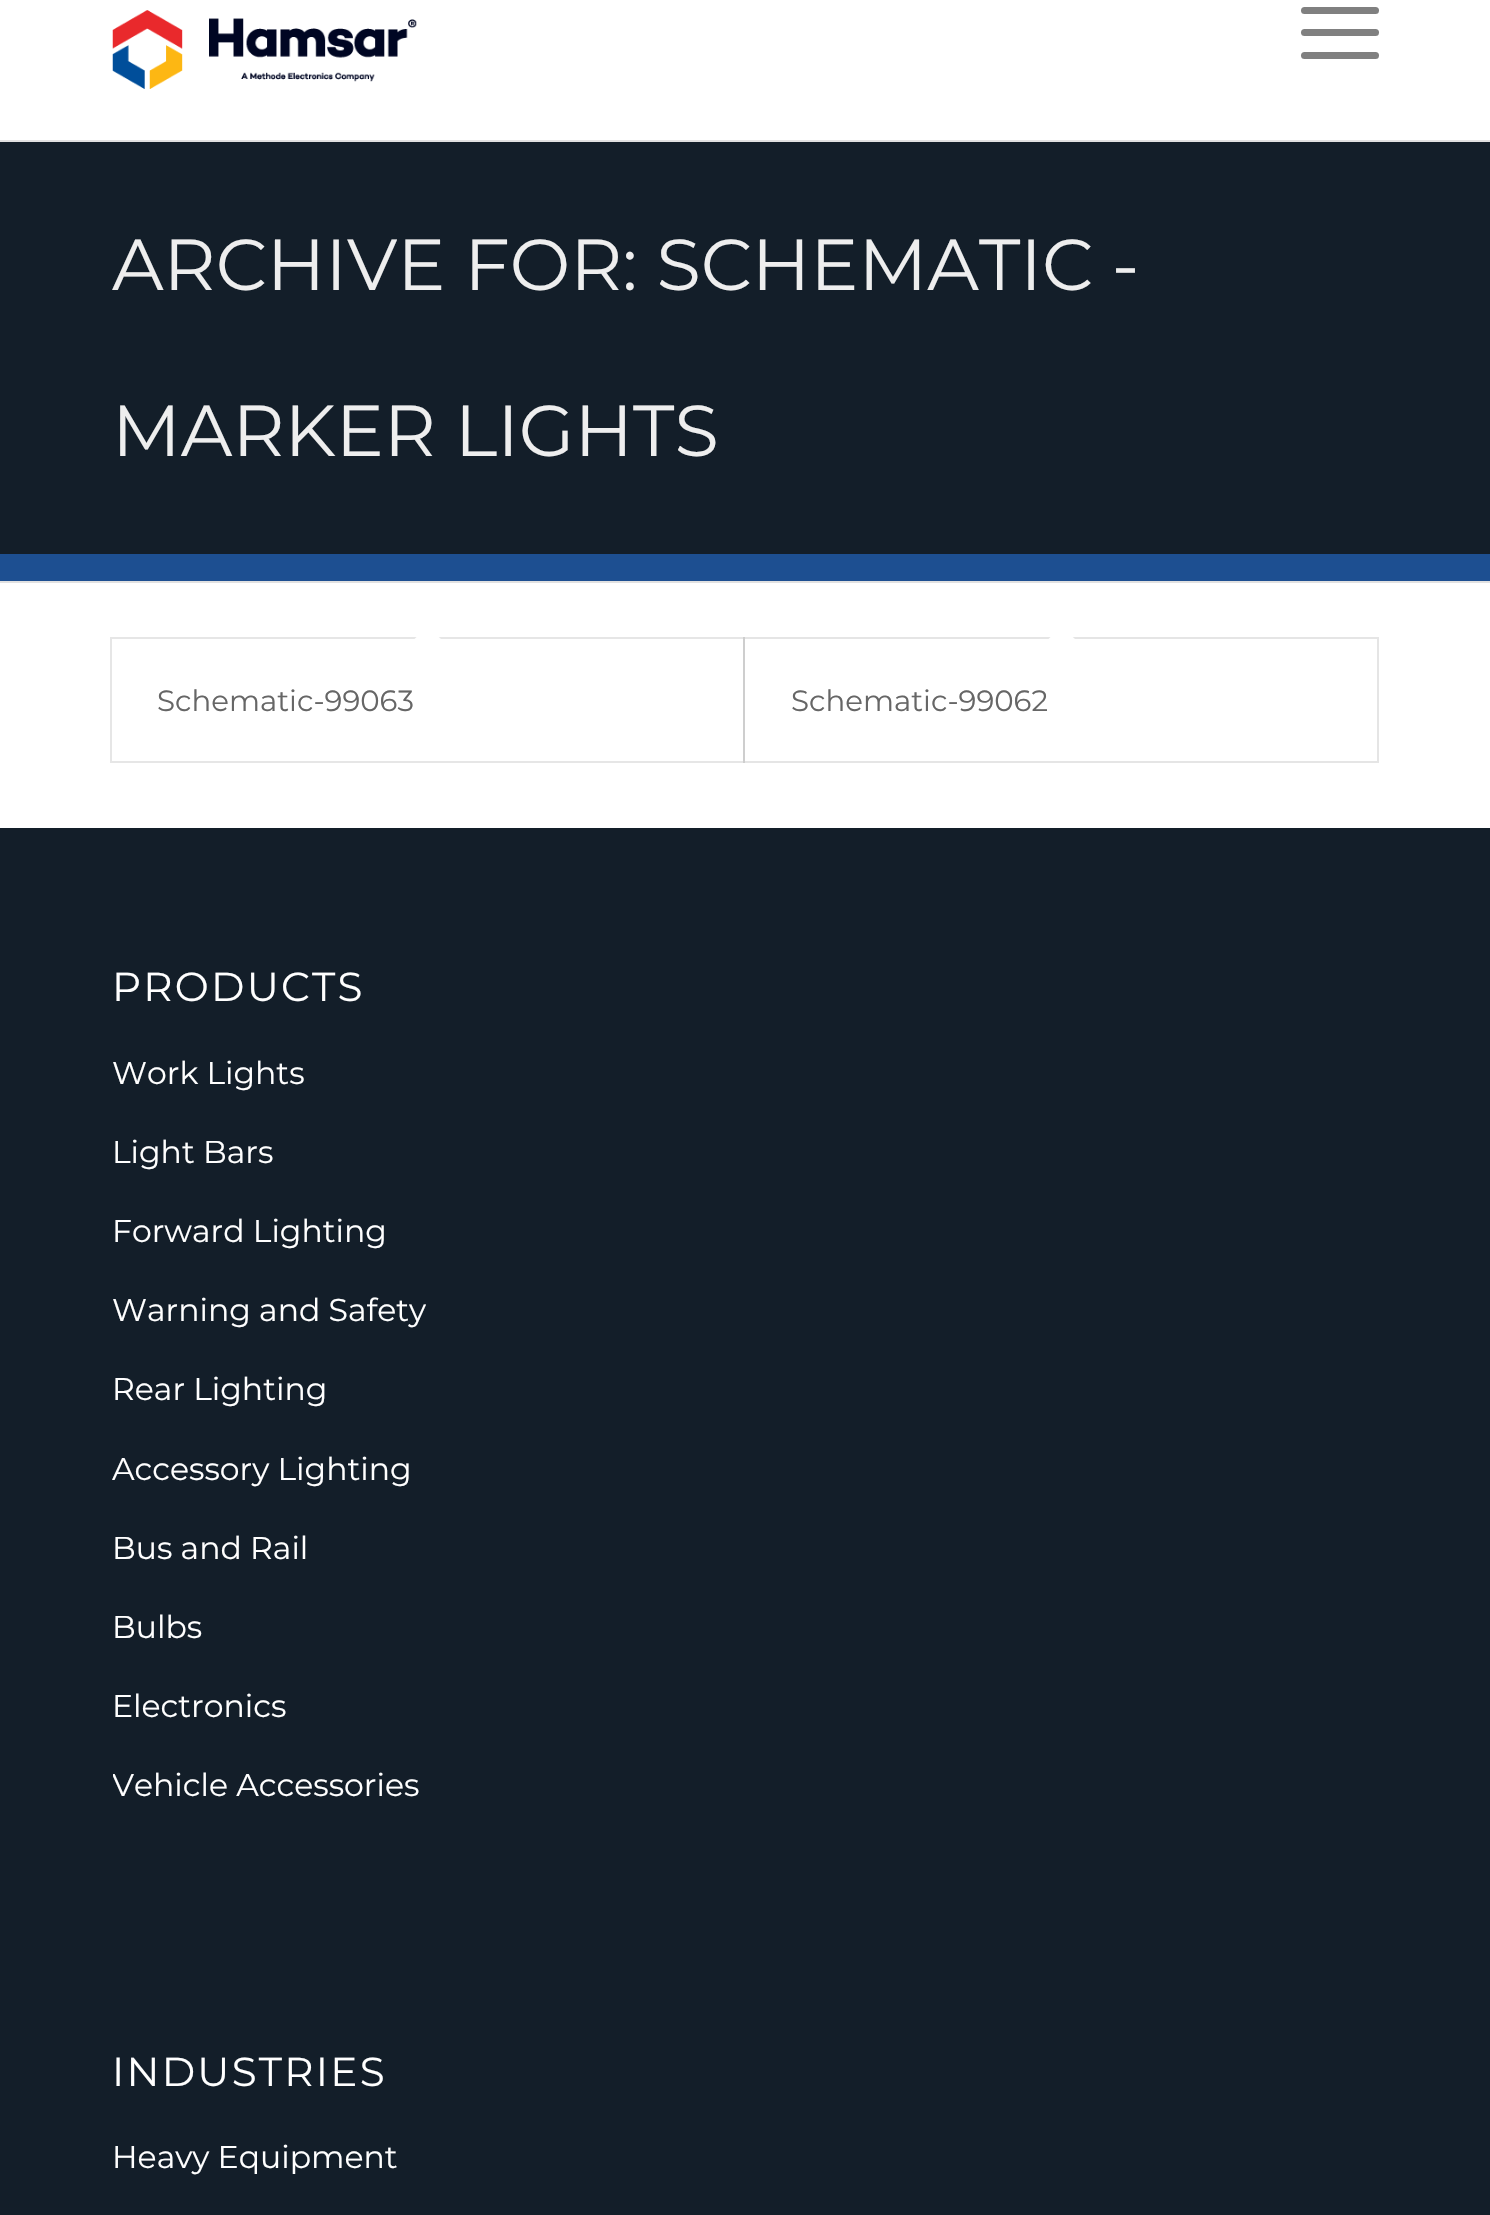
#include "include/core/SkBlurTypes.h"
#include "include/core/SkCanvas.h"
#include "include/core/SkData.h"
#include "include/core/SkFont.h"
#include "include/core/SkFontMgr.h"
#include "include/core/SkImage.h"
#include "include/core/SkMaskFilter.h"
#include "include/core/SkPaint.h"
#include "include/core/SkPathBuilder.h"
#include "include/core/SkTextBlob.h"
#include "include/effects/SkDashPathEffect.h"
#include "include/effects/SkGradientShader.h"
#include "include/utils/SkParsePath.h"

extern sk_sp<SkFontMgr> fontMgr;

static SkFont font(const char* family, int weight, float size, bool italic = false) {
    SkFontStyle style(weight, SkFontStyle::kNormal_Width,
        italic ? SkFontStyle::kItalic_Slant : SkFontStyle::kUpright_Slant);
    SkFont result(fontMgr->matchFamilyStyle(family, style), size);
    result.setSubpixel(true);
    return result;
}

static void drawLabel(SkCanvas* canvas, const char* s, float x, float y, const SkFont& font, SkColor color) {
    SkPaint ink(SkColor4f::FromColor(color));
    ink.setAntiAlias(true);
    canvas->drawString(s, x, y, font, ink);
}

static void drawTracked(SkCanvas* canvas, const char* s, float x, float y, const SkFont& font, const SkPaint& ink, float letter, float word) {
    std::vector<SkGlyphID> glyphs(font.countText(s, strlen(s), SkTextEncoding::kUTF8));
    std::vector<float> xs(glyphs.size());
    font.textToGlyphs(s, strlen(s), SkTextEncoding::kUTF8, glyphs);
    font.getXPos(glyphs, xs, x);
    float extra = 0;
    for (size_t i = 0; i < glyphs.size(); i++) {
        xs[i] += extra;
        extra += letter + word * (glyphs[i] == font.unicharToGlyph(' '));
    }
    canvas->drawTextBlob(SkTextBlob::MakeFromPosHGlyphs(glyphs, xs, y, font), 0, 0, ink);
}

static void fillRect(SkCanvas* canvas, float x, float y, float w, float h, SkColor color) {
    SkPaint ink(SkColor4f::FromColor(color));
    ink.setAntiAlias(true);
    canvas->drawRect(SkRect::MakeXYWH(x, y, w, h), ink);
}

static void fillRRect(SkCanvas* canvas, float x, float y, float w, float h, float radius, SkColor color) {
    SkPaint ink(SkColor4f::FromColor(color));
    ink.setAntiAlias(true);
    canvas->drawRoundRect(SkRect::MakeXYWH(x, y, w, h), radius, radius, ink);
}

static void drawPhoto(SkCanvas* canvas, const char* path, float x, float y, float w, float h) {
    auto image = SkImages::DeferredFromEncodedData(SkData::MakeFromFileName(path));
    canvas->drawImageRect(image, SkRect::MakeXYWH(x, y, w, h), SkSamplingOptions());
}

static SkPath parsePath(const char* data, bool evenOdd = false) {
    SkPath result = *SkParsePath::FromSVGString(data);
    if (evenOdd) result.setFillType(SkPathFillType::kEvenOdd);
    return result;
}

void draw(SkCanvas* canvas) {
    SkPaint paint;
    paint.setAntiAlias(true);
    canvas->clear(0xFFFFFFFF);
    fillRect(canvas, 0, 140, 1490, 2, 0xFFE1E1E1);
    drawPhoto(canvas, "assets/img1.png", 112, 10, 305, 79);
    fillRRect(canvas, 1301, 29, 78, 7, 3.5f, 0xFF808080);
    fillRRect(canvas, 1301, 7, 78, 7, 3.5f, 0xFF808080);
    fillRRect(canvas, 1301, 52, 78, 7, 3.5f, 0xFF808080);
    fillRect(canvas, 0, 142, 1490, 412, 0xFF131E29);
    fillRect(canvas, 0, 554, 1490, 27, 0xFF1D4F91);
    SkFont font1 = font("Montserrat", 100, 72);
    drawLabel(canvas, "ARCHIVE FOR: SCHEMATIC -", 112, 290, font1, 0xFFEEEEEE);
    drawLabel(canvas, "MARKER LIGHTS", 112, 456, font1, 0xFFEEEEEE);
    fillRect(canvas, 0, 581, 1490, 2, 0xFFE1E1E1);
    paint.setStroke(true);
    paint.setStrokeWidth(2);
    paint.setColor(0xFFE6E6E6);
    canvas->drawRect(SkRect::MakeXYWH(111, 638, 633, 124), paint);
    paint.setStroke(false);
    paint.setColor(0xFFFFFFFF);
    canvas->drawPath(parsePath("M427.5 626L443.5 641.5L427.5 657.5L412 641.5Z"), paint);
    SkFont font2 = font("Montserrat", 100, 29.25f);
    drawLabel(canvas, "Schematic-99063", 157, 711, font2, 0xFF666666);
    paint.setStroke(true);
    paint.setColor(0x1A000000);
    canvas->drawRect(SkRect::MakeXYWH(744, 638, 634, 124), paint);
    paint.setStroke(false);
    paint.setColor(0xFFFFFFFF);
    canvas->drawPath(parsePath("M1061.5 626L1077.5 641.5L1061.5 657.5L1046 641.5Z"), paint);
    drawLabel(canvas, "Schematic-99062", 791, 711, font2, 0xFF666666);
    fillRect(canvas, 0, 828, 1490, 1387, 0xFF131E29);
    SkFont font3 = font("Montserrat", 100, 40.5f);
    drawTracked(canvas, "PRODUCTS", 112, 1001, font3, paint, 2.25f, 0);
    SkFont font4 = font("Montserrat", 100, 31.5f);
    drawLabel(canvas, "Work Lights", 112, 1084, font4, 0xFFFFFFFF);
    drawLabel(canvas, "Light Bars", 112, 1163, font4, 0xFFFFFFFF);
    drawLabel(canvas, "Forward Lighting", 112, 1242, font4, 0xFFFFFFFF);
    drawLabel(canvas, "Warning and Safety", 112, 1321, font4, 0xFFFFFFFF);
    drawLabel(canvas, "Rear Lighting", 112, 1400, font4, 0xFFFFFFFF);
    drawLabel(canvas, "Accessory Lighting", 112, 1480, font4, 0xFFFFFFFF);
    drawLabel(canvas, "Bus and Rail", 112, 1559, font4, 0xFFFFFFFF);
    drawLabel(canvas, "Bulbs", 112, 1638, font4, 0xFFFFFFFF);
    drawLabel(canvas, "Electronics", 112, 1717, font4, 0xFFFFFFFF);
    canvas->save();
    canvas->clipRect(SkRect::MakeXYWH(113, 1046, 1266, 792));
    drawLabel(canvas, "Vehicle Accessories", 112, 1796, font4, 0xFFFFFFFF);
    canvas->restore();
    drawTracked(canvas, "INDUSTRIES", 112, 2086, font3, paint, 2.25f, 0);
    drawLabel(canvas, "Heavy Equipment", 112, 2168, font4, 0xFFFFFFFF);
}
